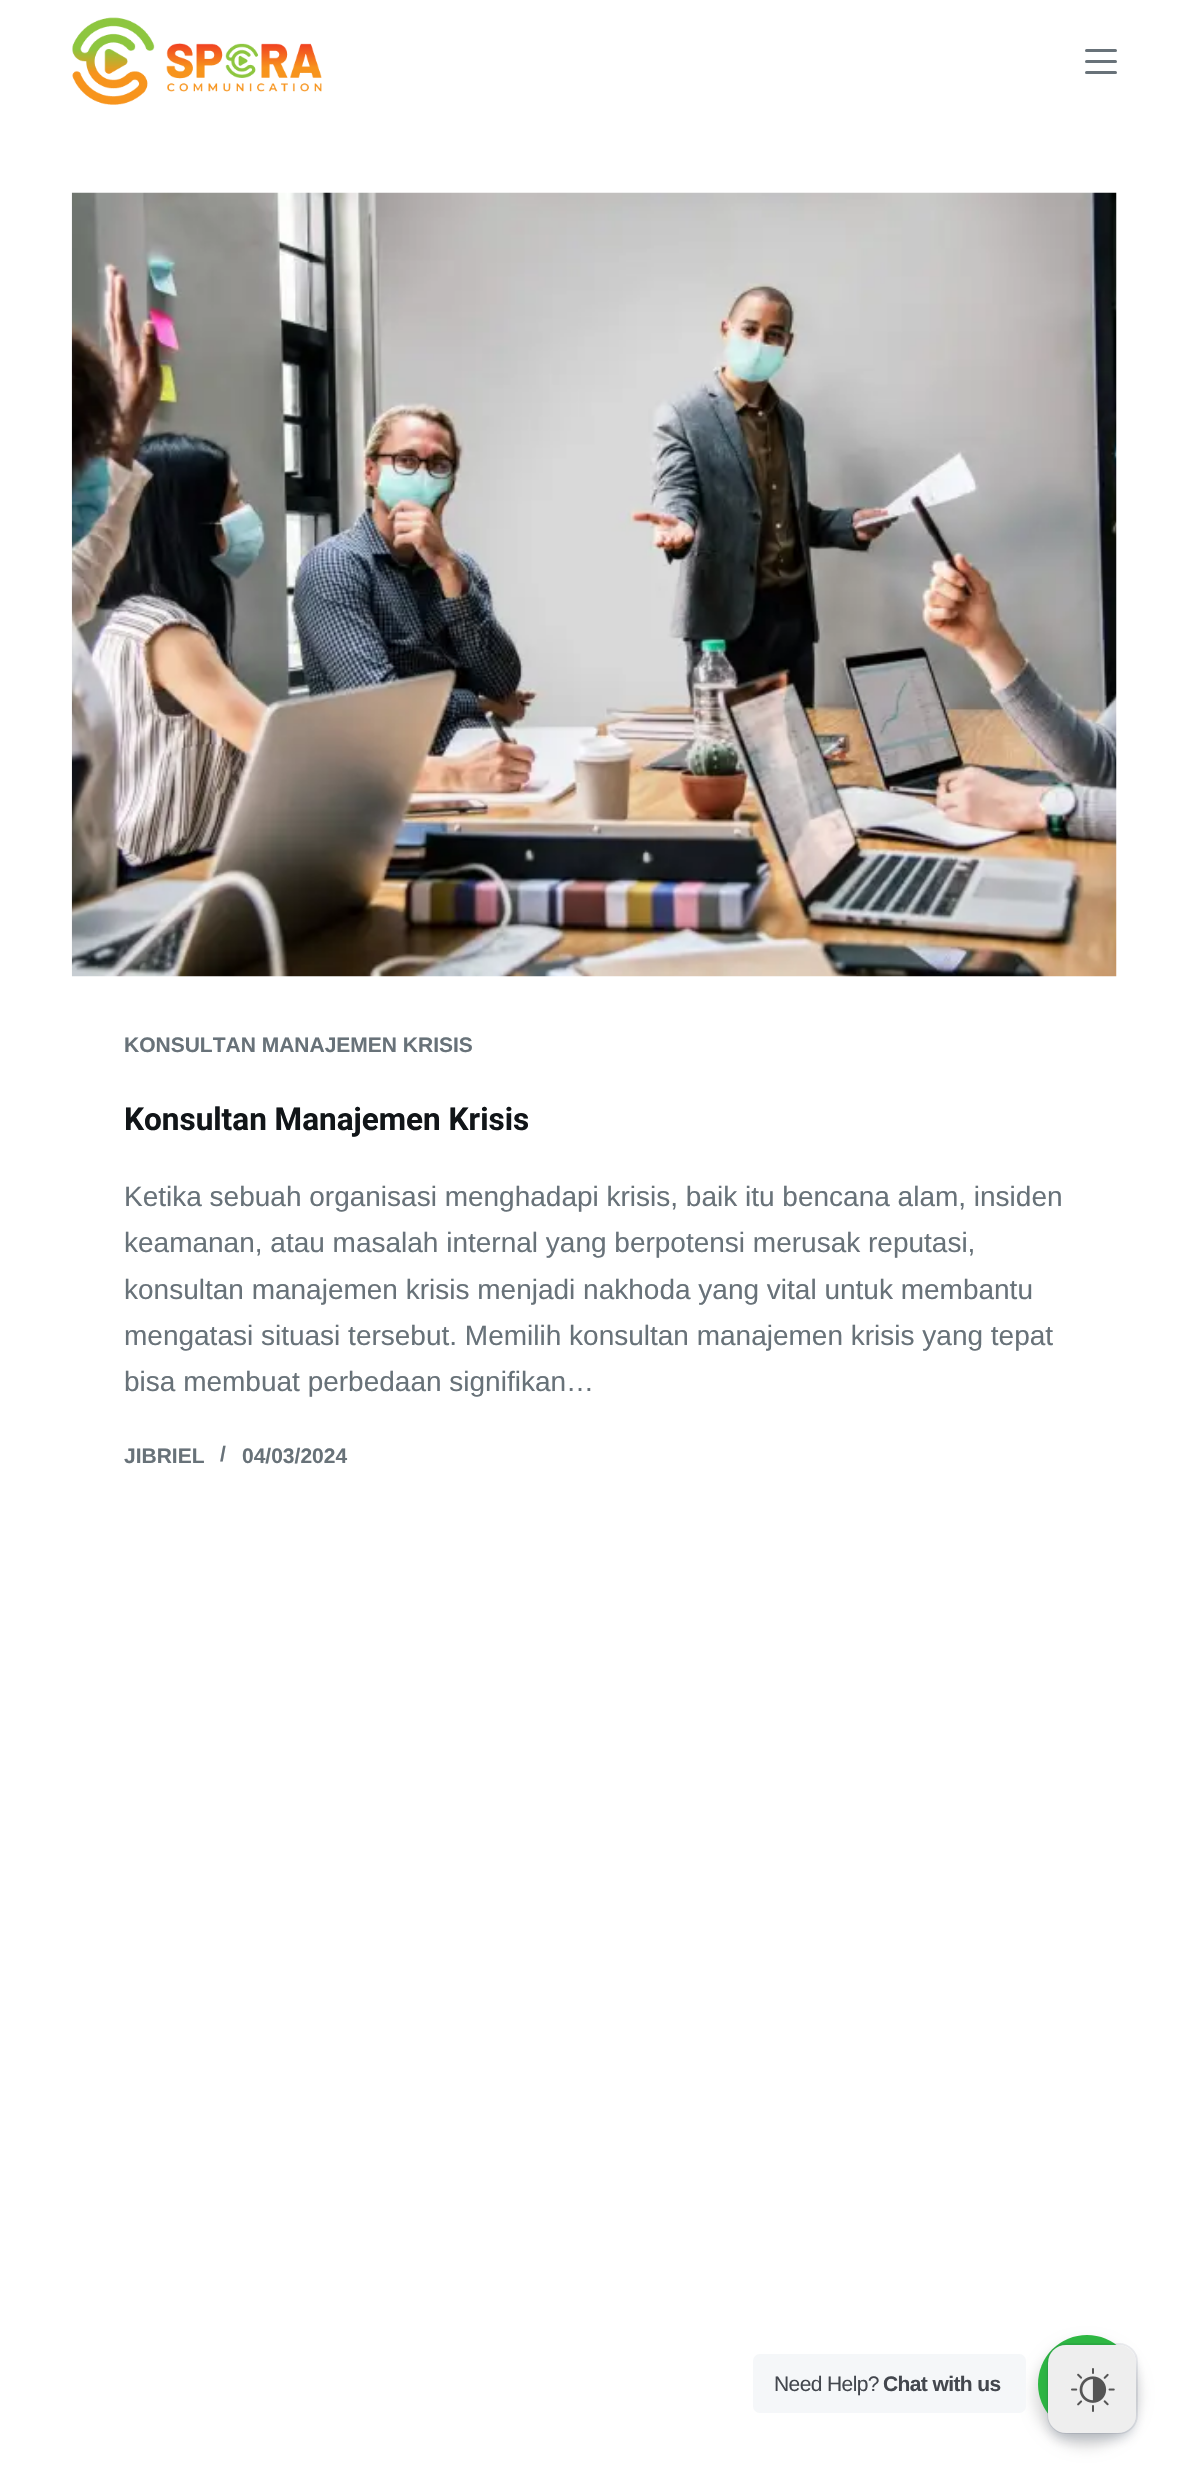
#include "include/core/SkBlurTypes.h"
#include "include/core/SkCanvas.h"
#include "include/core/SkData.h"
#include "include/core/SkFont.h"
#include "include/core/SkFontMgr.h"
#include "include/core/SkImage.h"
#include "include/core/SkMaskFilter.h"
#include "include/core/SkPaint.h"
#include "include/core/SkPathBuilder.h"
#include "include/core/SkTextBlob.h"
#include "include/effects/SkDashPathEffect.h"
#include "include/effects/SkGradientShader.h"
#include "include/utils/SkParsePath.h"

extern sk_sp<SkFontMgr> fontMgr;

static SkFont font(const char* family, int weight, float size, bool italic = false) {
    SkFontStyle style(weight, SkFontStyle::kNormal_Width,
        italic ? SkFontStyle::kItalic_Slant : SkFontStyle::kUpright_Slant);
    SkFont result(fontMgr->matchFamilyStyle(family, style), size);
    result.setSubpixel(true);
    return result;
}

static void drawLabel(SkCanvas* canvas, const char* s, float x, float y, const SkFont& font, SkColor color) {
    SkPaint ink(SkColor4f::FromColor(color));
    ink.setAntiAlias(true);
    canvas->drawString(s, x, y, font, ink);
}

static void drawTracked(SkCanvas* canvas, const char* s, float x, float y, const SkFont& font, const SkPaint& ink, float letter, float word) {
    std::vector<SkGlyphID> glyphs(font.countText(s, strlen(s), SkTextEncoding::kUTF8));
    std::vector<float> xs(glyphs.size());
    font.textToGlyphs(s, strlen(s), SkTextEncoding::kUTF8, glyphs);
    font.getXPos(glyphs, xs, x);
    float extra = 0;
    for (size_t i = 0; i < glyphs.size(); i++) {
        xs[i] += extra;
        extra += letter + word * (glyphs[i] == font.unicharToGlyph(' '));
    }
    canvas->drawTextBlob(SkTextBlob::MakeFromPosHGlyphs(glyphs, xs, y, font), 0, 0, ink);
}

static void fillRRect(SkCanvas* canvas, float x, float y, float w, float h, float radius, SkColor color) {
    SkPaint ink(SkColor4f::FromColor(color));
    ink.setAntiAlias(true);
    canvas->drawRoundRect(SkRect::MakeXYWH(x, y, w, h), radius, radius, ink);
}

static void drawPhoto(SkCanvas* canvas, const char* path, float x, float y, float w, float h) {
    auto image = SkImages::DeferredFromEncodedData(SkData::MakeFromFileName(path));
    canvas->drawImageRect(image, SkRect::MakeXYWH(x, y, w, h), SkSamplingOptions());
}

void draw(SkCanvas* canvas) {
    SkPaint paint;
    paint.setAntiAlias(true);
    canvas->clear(0xFFFFFFFF);
    drawPhoto(canvas, "assets/img1.png", 72, 17, 250, 88);
    fillRRect(canvas, 1085, 49, 32, 3, 1.5f, 0xFF687279);
    fillRRect(canvas, 1085, 60, 32, 3, 1.5f, 0xFF687279);
    fillRRect(canvas, 1085, 71, 32, 3, 1.5f, 0xFF687279);
    drawPhoto(canvas, "assets/img2.png", 71, 192, 1046, 785);
    SkFont font1 = font("Liberation Sans", 700, 21);
    drawLabel(canvas, "KONSULTAN MANAJEMEN KRISIS", 124, 1052, font1, 0xFF687279);
    SkFont font2 = font("Roboto", 700, 31.5f);
    drawLabel(canvas, "Konsultan Manajemen Krisis", 124, 1130, font2, 0xFF111518);
    SkFont font3 = font("Liberation Sans", 400, 28);
    drawLabel(canvas, "Ketika sebuah organisasi menghadapi krisis, baik itu bencana alam, insiden", 124, 1206, font3, 0xFF687279);
    drawLabel(canvas, "keamanan, atau masalah internal yang berpotensi merusak reputasi,", 124, 1252, font3, 0xFF687279);
    drawLabel(canvas, "konsultan manajemen krisis menjadi nakhoda yang vital untuk membantu", 124, 1299, font3, 0xFF687279);
    drawLabel(canvas, "mengatasi situasi tersebut. Memilih konsultan manajemen krisis yang tepat", 124, 1345, font3, 0xFF687279);
    drawLabel(canvas, "bisa membuat perbedaan signifikan…", 124, 1391, font3, 0xFF687279);
    drawLabel(canvas, "JIBRIEL", 124, 1463, font1, 0xFF687279);
    drawLabel(canvas, "/", 220, 1461, font1, 0xFF687279);
    drawLabel(canvas, "04/03/2024", 242, 1463, font1, 0xFF687279);
    paint.setColor(0x24000000);
    paint.setMaskFilter(SkMaskFilter::MakeBlur(kNormal_SkBlurStyle, 7));
    canvas->drawRoundRect(SkRect::MakeXYWH(1034, 2342, 105, 105), 52.5f, 52.5f, paint);
    paint.setMaskFilter(nullptr);
    fillRRect(canvas, 753, 2354, 273, 59, 7, 0xFFF5F7F9);
    SkFont font4 = font("Liberation Sans", 400, 21);
    paint.setColor(0xFF43474E);
    drawTracked(canvas, "Need Help?", 774, 2391, font4, paint, -0.6f, 0);
    drawTracked(canvas, "Chat with us", 883, 2391, font1, paint, -0.6f, 0);
    paint.setColor(0xFF2DB742);
    canvas->drawCircle(1087, 2384, 49, paint);
    paint.setStroke(true);
    paint.setStrokeWidth(2);
    paint.setColor(0x14091E42);
    canvas->drawRoundRect(SkRect::MakeXYWH(1048, 2344, 89, 89), 18, 18, paint);
    paint.setStroke(false);
    paint.setColor(0x40091E42);
    paint.setMaskFilter(SkMaskFilter::MakeBlur(kNormal_SkBlurStyle, 7));
    canvas->drawRoundRect(SkRect::MakeXYWH(1052, 2356, 80, 80), 14, 14, paint);
    paint.setMaskFilter(nullptr);
    fillRRect(canvas, 1048, 2345, 88, 88, 18, 0xFFEEEEEE);
    drawPhoto(canvas, "assets/img3.png", 1071, 2368, 44, 44);
}
